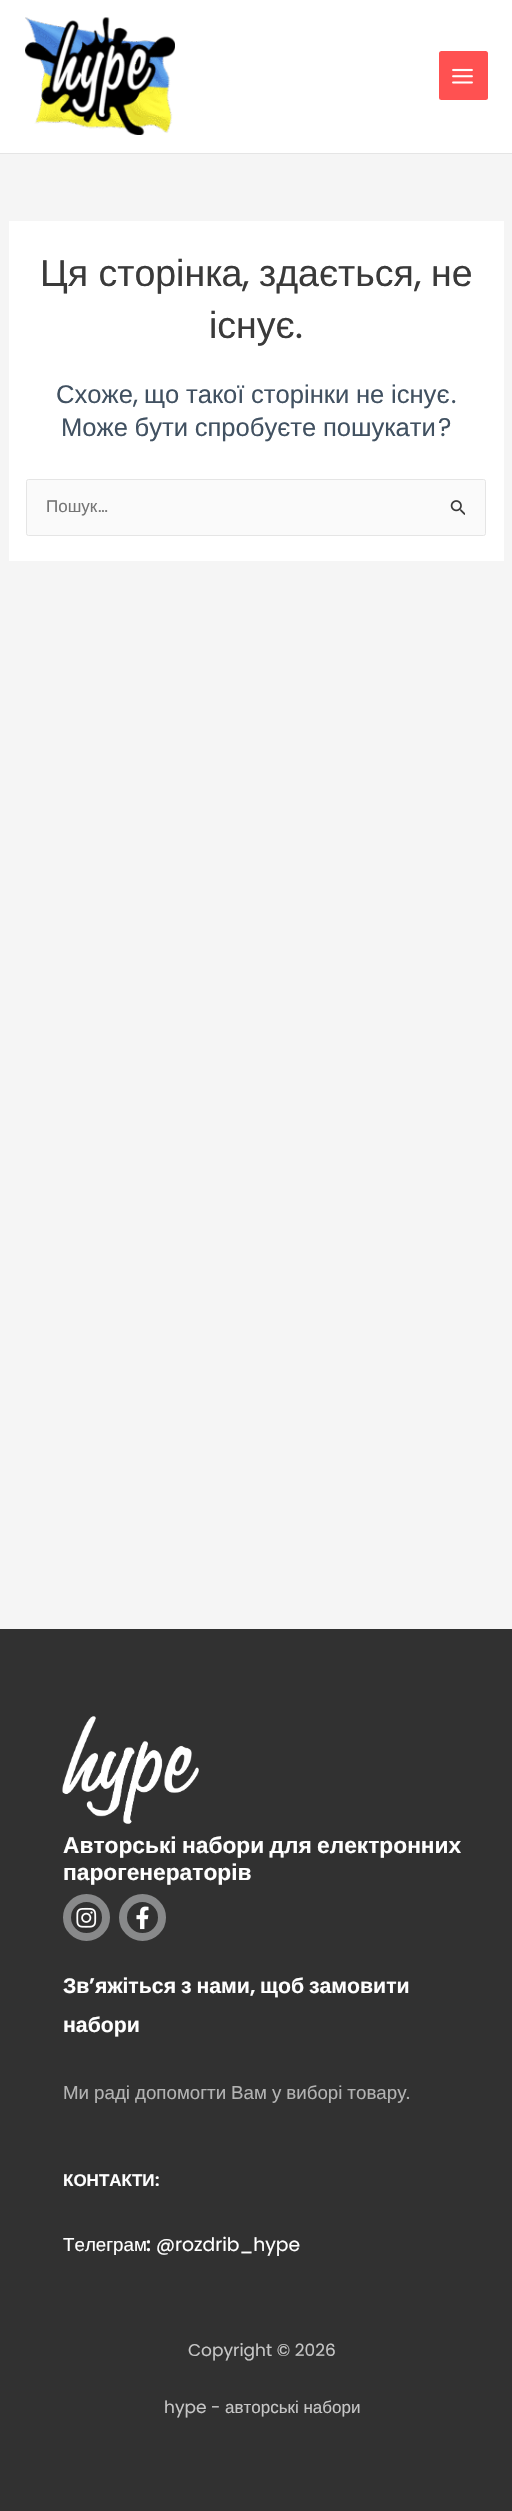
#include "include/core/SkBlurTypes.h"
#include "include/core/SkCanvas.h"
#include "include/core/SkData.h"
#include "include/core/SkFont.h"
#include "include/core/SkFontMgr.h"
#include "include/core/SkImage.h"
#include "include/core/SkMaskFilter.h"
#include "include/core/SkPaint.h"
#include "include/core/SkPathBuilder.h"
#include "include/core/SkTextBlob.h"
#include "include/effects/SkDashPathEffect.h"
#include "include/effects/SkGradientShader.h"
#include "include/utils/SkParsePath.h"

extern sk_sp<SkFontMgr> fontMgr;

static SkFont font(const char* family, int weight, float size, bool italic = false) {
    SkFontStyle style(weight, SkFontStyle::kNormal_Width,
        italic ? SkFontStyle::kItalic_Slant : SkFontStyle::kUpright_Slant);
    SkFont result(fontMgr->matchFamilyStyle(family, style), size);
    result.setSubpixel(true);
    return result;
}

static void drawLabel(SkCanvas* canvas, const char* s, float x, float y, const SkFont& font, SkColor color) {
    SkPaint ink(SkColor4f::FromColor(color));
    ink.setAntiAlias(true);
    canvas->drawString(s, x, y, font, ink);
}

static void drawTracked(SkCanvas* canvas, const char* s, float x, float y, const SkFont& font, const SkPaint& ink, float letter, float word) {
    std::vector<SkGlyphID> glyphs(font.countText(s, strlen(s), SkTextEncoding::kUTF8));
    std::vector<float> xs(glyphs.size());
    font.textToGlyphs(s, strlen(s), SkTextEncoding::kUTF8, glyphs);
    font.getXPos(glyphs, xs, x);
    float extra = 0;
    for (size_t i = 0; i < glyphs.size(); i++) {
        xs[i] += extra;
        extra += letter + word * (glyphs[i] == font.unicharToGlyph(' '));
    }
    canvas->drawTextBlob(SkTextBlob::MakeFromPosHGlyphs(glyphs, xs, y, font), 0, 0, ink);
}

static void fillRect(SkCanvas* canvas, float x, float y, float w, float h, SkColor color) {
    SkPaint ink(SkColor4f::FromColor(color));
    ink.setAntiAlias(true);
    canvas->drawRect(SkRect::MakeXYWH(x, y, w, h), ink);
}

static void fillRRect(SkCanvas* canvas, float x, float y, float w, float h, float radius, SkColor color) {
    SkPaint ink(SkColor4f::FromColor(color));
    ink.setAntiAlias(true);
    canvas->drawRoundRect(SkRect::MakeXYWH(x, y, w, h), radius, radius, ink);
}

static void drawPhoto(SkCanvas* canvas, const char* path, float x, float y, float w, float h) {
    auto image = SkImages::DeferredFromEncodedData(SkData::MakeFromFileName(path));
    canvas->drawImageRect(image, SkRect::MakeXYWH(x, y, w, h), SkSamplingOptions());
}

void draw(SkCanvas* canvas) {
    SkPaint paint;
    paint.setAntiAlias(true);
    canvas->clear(0xFFF5F5F5);
    fillRect(canvas, 0, 0, 512, 153, 0xFFFFFFFF);
    fillRect(canvas, 0, 153, 512, 1, 0xFFE5E5E5);
    drawPhoto(canvas, "assets/img1.png", 25, 17, 150, 118);
    fillRRect(canvas, 439, 51, 49, 49, 2.5f, 0xFFFF5151);
    drawPhoto(canvas, "assets/img2.png", 452, 68, 21, 16);
    fillRect(canvas, 9, 221, 495, 340, 0xFFFFFFFF);
    SkFont font1 = font("Liberation Sans", 400, 37.5f);
    drawLabel(canvas, "Ця сторінка", 40, 286, font1, 0xFF3A3A3A);
    SkFont font2 = font("Poppins", 400, 37.5f);
    drawLabel(canvas, ",", 242, 286, font2, 0xFF3A3A3A);
    drawLabel(canvas, "здається", 259, 286, font1, 0xFF3A3A3A);
    drawLabel(canvas, ",", 414, 286, font2, 0xFF3A3A3A);
    drawLabel(canvas, "не", 431, 286, font1, 0xFF3A3A3A);
    drawLabel(canvas, "існує", 209, 338, font1, 0xFF3A3A3A);
    drawLabel(canvas, ".", 295, 338, font2, 0xFF3A3A3A);
    SkFont font3 = font("Liberation Sans", 400, 25.6f);
    drawLabel(canvas, "Схоже", 56, 403, font3, 0xFF415161);
    SkFont font4 = font("Poppins", 400, 25.6f);
    drawLabel(canvas, ",", 133, 403, font4, 0xFF415161);
    paint.setColor(0xFF415161);
    drawTracked(canvas, "що такої сторінки не існує", 144, 403, font3, paint, 0, -0.5f);
    drawLabel(canvas, ".", 451, 403, font4, 0xFF415161);
    drawTracked(canvas, "Може бути спробуєте пошукати", 61, 436, font3, paint, 0, -0.5f);
    drawLabel(canvas, "?", 438, 436, font4, 0xFF415161);
    paint.setColor(0xFFFAFAFA);
    canvas->drawRoundRect(SkRect::MakeXYWH(26.5f, 479.5f, 459, 56), 2, 2, paint);
    paint.setStroke(true);
    paint.setStrokeWidth(1);
    paint.setColor(0xFFE5E5E5);
    canvas->drawRoundRect(SkRect::MakeXYWH(26.5f, 479.5f, 459, 56), 2, 2, paint);
    SkFont font5 = font("Liberation Sans", 400, 17);
    drawLabel(canvas, "Пошук", 46, 512, font5, 0xFF757575);
    SkFont font6 = font("Poppins", 400, 17);
    drawLabel(canvas, "…", 98, 512, font6, 0xFF757575);
    drawPhoto(canvas, "assets/img3.png", 450, 500, 15, 15);
    fillRect(canvas, 0, 1629, 512, 882, 0xFF313131);
    drawPhoto(canvas, "assets/img4.png", 62, 1716, 137, 108);
    SkFont font7 = font("Liberation Sans", 700, 22.75f);
    paint.setStroke(false);
    paint.setColor(0xFFFFFFFF);
    drawTracked(canvas, "Авторські набори для електронних", 63, 1853, font7, paint, 0, -1);
    drawLabel(canvas, "парогенераторів", 63, 1880, font7, 0xFFFFFFFF);
    paint.setStroke(true);
    paint.setStrokeWidth(8);
    paint.setColor(0xFF88898A);
    canvas->drawCircle(86.5f, 1917.5f, 19.5f, paint);
    drawPhoto(canvas, "assets/img5.png", 76, 1907, 21, 21);
    canvas->drawCircle(142.5f, 1917.5f, 19.5f, paint);
    drawPhoto(canvas, "assets/img6.png", 136, 1906, 13, 24);
    SkFont font8 = font("Liberation Sans", 700, 21.25f);
    drawLabel(canvas, "Зв", 63, 1993, font8, 0xFFFFFFFF);
    SkFont font9 = font("Poppins", 600, 21.25f);
    drawLabel(canvas, "’", 89, 1993, font9, 0xFFFFFFFF);
    paint.setStroke(false);
    paint.setColor(0xFFFFFFFF);
    drawTracked(canvas, "яжіться з нами", 95, 1993, font8, paint, 0, -1);
    drawTracked(canvas, "щоб замовити", 260, 1993, font8, paint, 0, -1);
    drawLabel(canvas, ",", 250, 1993, font9, 0xFFFFFFFF);
    drawLabel(canvas, "набори", 63, 2032, font8, 0xFFFFFFFF);
    SkFont font10 = font("Liberation Sans", 400, 18.75f);
    paint.setColor(0xFFB3B3B3);
    drawTracked(canvas, "Ми раді допомогти Вам у виборі товару", 63, 2099, font10, paint, 0, -0.25f);
    SkFont font11 = font("Poppins", 400, 18.75f);
    drawLabel(canvas, ".", 406, 2099, font11, 0xFFB3B3B3);
    SkFont font12 = font("Liberation Sans", 700, 17);
    drawLabel(canvas, "КОНТАКТИ", 63, 2186, font12, 0xFFFFFFFF);
    SkFont font13 = font("Poppins", 600, 17);
    drawLabel(canvas, ":", 155, 2186, font13, 0xFFFFFFFF);
    drawLabel(canvas, "Телеграм", 63, 2251, font10, 0xFFFFFFFF);
    SkFont font14 = font("Poppins", 600, 18.75f);
    drawLabel(canvas, ":", 146, 2251, font14, 0xFFFFFFFF);
    drawLabel(canvas, "@rozdrib_hype", 156, 2251, font11, 0xFFFFFFFF);
    drawLabel(canvas, "Copyright © 2026", 188, 2356, font6, 0xFFC6C6C6);
    drawLabel(canvas, "hype -", 164, 2413, font6, 0xFFC6C6C6);
    drawLabel(canvas, "авторські набори", 225, 2413, font5, 0xFFC6C6C6);
}
